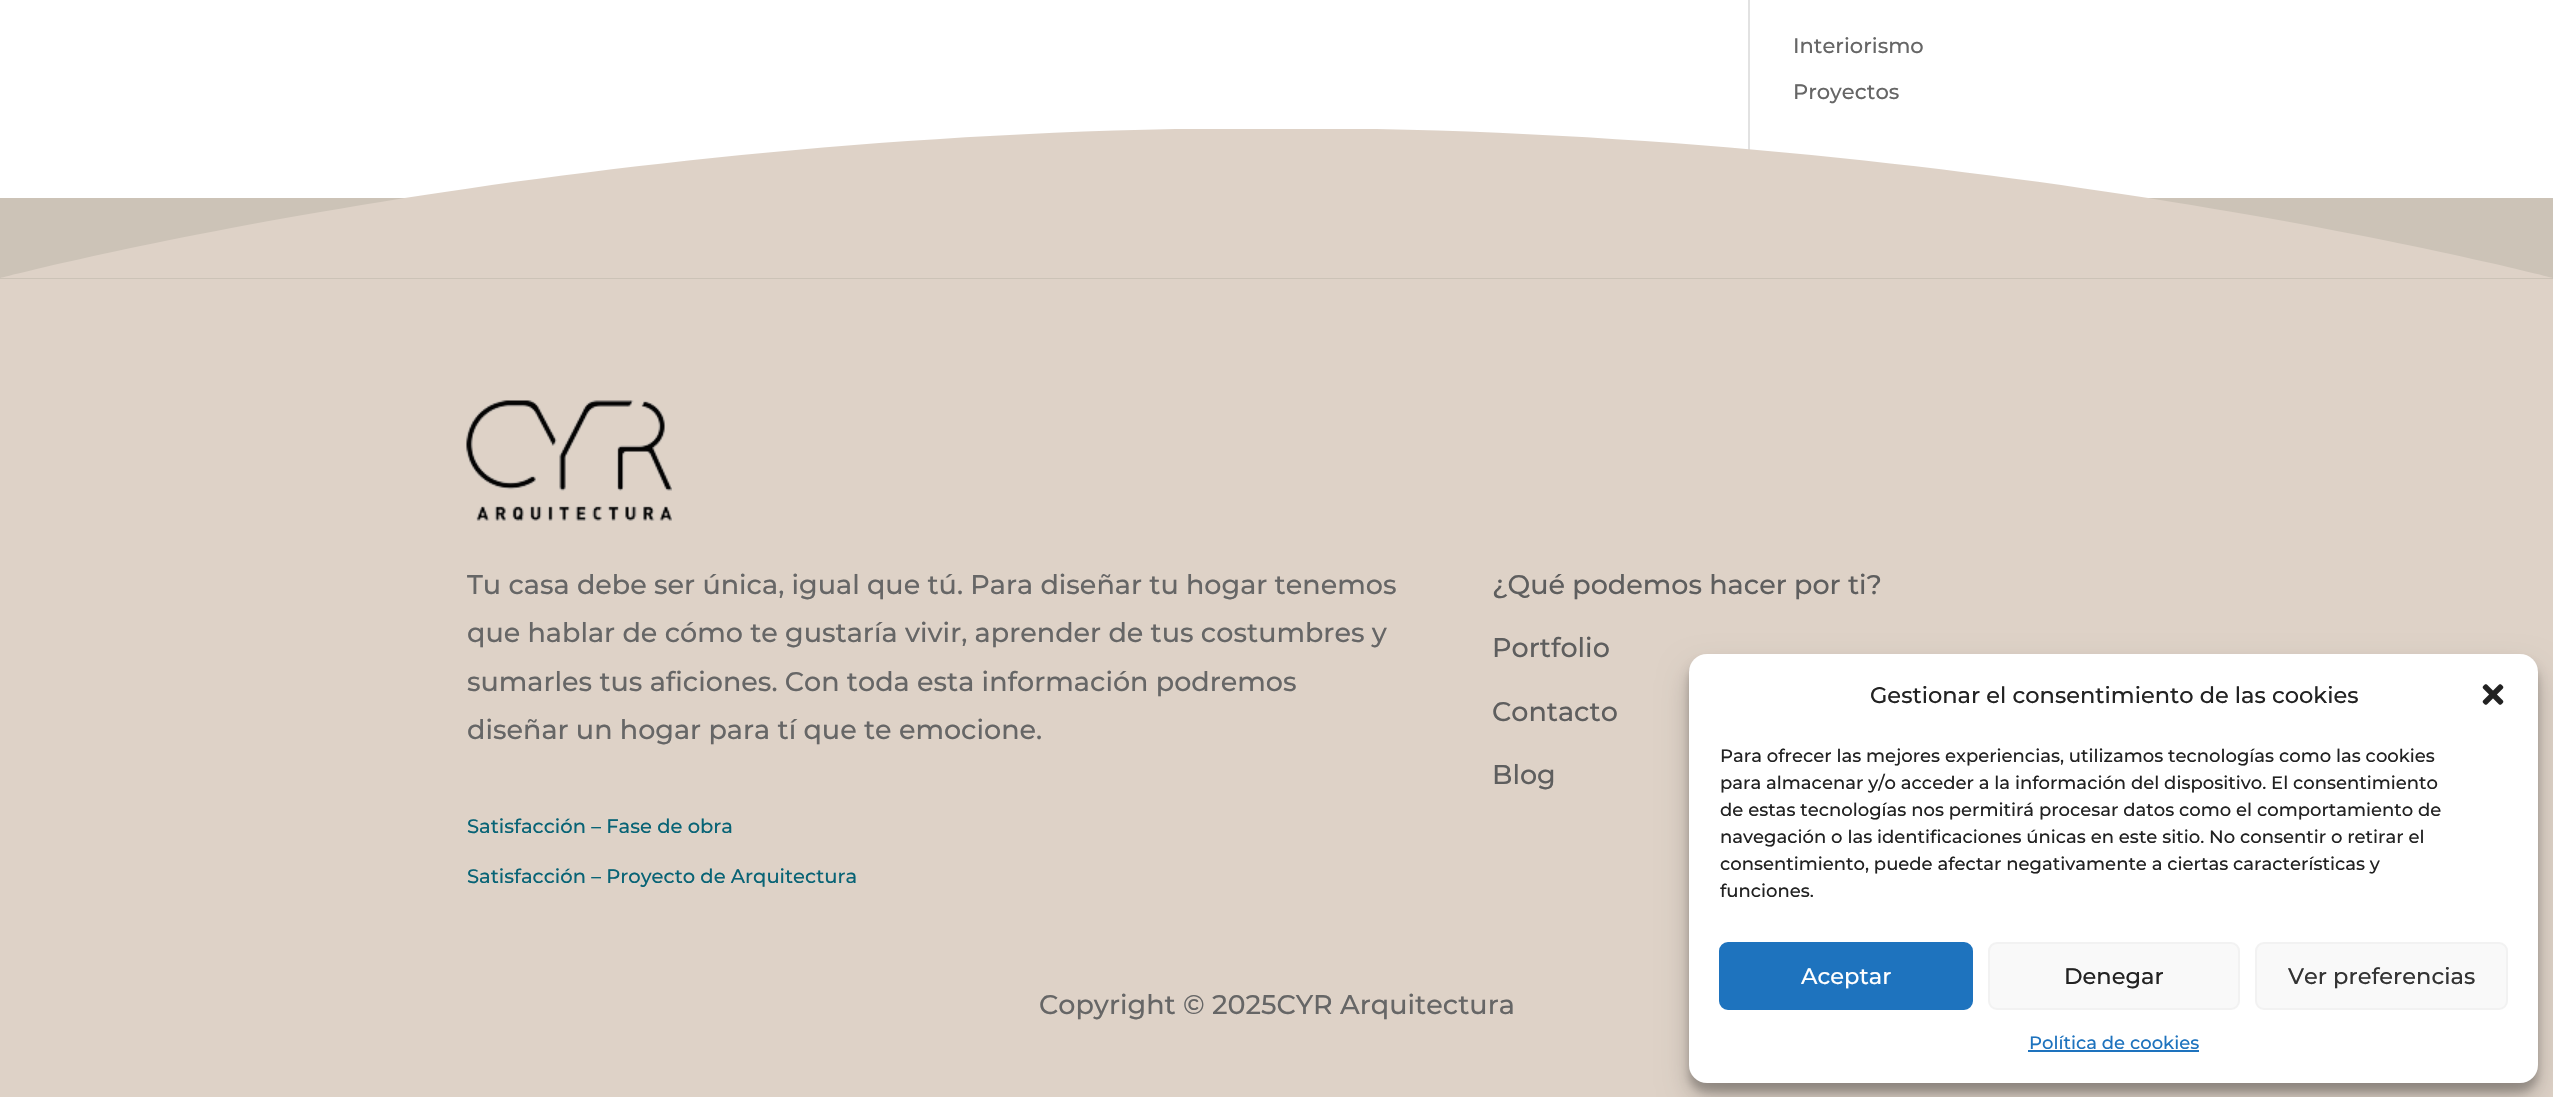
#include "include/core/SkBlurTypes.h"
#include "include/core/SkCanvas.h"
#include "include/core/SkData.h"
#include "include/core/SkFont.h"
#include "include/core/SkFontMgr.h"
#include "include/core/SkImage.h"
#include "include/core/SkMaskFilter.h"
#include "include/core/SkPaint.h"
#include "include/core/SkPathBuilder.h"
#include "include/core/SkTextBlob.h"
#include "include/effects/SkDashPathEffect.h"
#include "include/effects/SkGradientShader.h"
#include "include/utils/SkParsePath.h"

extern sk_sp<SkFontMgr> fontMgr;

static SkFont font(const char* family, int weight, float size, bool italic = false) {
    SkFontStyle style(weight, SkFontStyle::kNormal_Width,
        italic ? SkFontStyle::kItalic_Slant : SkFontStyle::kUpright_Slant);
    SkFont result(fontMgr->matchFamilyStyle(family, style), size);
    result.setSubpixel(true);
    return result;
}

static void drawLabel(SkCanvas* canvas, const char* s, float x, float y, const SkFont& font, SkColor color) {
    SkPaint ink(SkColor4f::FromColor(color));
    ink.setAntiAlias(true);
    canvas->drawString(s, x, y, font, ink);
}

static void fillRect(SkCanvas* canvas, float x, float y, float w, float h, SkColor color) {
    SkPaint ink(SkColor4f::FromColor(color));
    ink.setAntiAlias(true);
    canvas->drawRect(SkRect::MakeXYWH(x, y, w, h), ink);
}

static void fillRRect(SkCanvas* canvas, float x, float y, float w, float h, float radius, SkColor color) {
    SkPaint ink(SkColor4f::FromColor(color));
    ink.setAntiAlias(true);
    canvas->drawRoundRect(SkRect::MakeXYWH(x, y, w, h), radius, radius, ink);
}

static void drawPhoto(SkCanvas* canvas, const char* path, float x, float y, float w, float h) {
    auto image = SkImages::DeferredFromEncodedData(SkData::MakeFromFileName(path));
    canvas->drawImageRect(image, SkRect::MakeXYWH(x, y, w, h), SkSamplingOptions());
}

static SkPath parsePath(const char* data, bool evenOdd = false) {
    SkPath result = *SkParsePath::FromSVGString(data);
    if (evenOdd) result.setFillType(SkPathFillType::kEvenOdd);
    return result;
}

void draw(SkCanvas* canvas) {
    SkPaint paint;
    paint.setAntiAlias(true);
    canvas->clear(0xFFDED2C7);
    fillRect(canvas, 0, 0, 2553, 198, 0xFFFFFFFF);
    fillRect(canvas, 1748, 0, 2, 150, 0xFFE2E2E2);
    SkFont font1 = font("Montserrat", 500, 21);
    drawLabel(canvas, "Interiorismo", 1793, 53, font1, 0xFF666666);
    drawLabel(canvas, "Proyectos", 1793, 99, font1, 0xFF666666);
    fillRect(canvas, 0, 198, 2553, 81, 0xFFCCC3B7);
    canvas->save();
    canvas->clipRect(SkRect::MakeXYWH(0, 129, 2553, 150));
    paint.setColor(0xFFDED2C7);
    canvas->drawPath(parsePath("M1276 128C572 128 0 278 0 278H2553C2553 278 1981 128 1276 128Z"), paint);
    canvas->restore();
    drawPhoto(canvas, "assets/img1.png", 466, 400, 206, 121);
    SkFont font2 = font("Montserrat", 500, 27);
    drawLabel(canvas, "Tu casa debe ser única, igual que tú. Para diseñar tu hogar tenemos", 467, 594, font2, 0xFF666666);
    drawLabel(canvas, "que hablar de cómo te gustaría vivir, aprender de tus costumbres y", 467, 642, font2, 0xFF666666);
    drawLabel(canvas, "sumarles tus aficiones. Con toda esta información podremos", 467, 691, font2, 0xFF666666);
    drawLabel(canvas, "diseñar un hogar para tí que te emocione.", 467, 739, font2, 0xFF666666);
    SkFont font3 = font("Montserrat", 500, 19.5f);
    drawLabel(canvas, "Satisfacción – Fase de obra", 467, 833, font3, 0xFF086375);
    drawLabel(canvas, "Satisfacción – Proyecto de Arquitectura", 467, 883, font3, 0xFF086375);
    drawLabel(canvas, "¿Qué podemos hacer por ti?", 1492, 594, font2, 0xFF5E5E5E);
    drawLabel(canvas, "Portfolio", 1492, 657, font2, 0xFF5E5E5E);
    drawLabel(canvas, "Contacto", 1492, 721, font2, 0xFF5E5E5E);
    drawLabel(canvas, "Blog", 1492, 784, font2, 0xFF5E5E5E);
    drawLabel(canvas, "Copyright © 2025CYR Arquitectura", 1039, 1014, font2, 0xFF666666);
    paint.setColor(0x3B000000);
    paint.setMaskFilter(SkMaskFilter::MakeBlur(kNormal_SkBlurStyle, 4.5f));
    canvas->drawRoundRect(SkRect::MakeXYWH(1689, 663, 849, 429), 18, 18, paint);
    paint.setMaskFilter(nullptr);
    paint.setColor(0x30000000);
    paint.setMaskFilter(SkMaskFilter::MakeBlur(kNormal_SkBlurStyle, 15));
    canvas->drawRoundRect(SkRect::MakeXYWH(1689, 669, 849, 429), 18, 18, paint);
    paint.setMaskFilter(nullptr);
    fillRRect(canvas, 1689, 654, 849, 429, 18, 0xFFFFFFFF);
    SkFont font4 = font("Montserrat", 500, 22.5f);
    drawLabel(canvas, "Gestionar el consentimiento de las cookies", 1870, 703, font4, 0xFF222222);
    drawPhoto(canvas, "assets/img2.png", 2482, 684, 22, 21);
    SkFont font5 = font("Montserrat", 500, 18);
    drawLabel(canvas, "Para ofrecer las mejores experiencias, utilizamos tecnologías como las cookies", 1720, 762, font5, 0xFF222222);
    drawLabel(canvas, "para almacenar y/o acceder a la información del dispositivo. El consentimiento", 1720, 789, font5, 0xFF222222);
    drawLabel(canvas, "de estas tecnologías nos permitirá procesar datos como el comportamiento de", 1720, 816, font5, 0xFF222222);
    drawLabel(canvas, "navegación o las identificaciones únicas en este sitio. No consentir o retirar el", 1720, 843, font5, 0xFF222222);
    drawLabel(canvas, "consentimiento, puede afectar negativamente a ciertas características y", 1720, 870, font5, 0xFF222222);
    drawLabel(canvas, "funciones.", 1720, 897, font5, 0xFF222222);
    paint.setColor(0xFF1E73BE);
    canvas->drawRoundRect(SkRect::MakeXYWH(1720, 943, 252, 66), 8, 8, paint);
    paint.setStroke(true);
    paint.setStrokeWidth(2);
    canvas->drawRoundRect(SkRect::MakeXYWH(1720, 943, 252, 66), 8, 8, paint);
    drawLabel(canvas, "Aceptar", 1801, 984, font4, 0xFFFFFFFF);
    paint.setStroke(false);
    paint.setColor(0xFFF9F9F9);
    canvas->drawRoundRect(SkRect::MakeXYWH(1989, 943, 250, 66), 8, 8, paint);
    paint.setStroke(true);
    paint.setColor(0xFFF2F2F2);
    canvas->drawRoundRect(SkRect::MakeXYWH(1989, 943, 250, 66), 8, 8, paint);
    drawLabel(canvas, "Denegar", 2064, 984, font4, 0xFF222222);
    paint.setStroke(false);
    paint.setColor(0xFFF9F9F9);
    canvas->drawRoundRect(SkRect::MakeXYWH(2256, 943, 251, 66), 8, 8, paint);
    paint.setStroke(true);
    paint.setColor(0xFFF2F2F2);
    canvas->drawRoundRect(SkRect::MakeXYWH(2256, 943, 251, 66), 8, 8, paint);
    drawLabel(canvas, "Ver preferencias", 2288, 984, font4, 0xFF333333);
    drawLabel(canvas, "Política de cookies", 2029, 1049, font5, 0xFF1E73BE);
    fillRect(canvas, 2028, 1050, 171, 2, 0xFF1E73BE);
}
